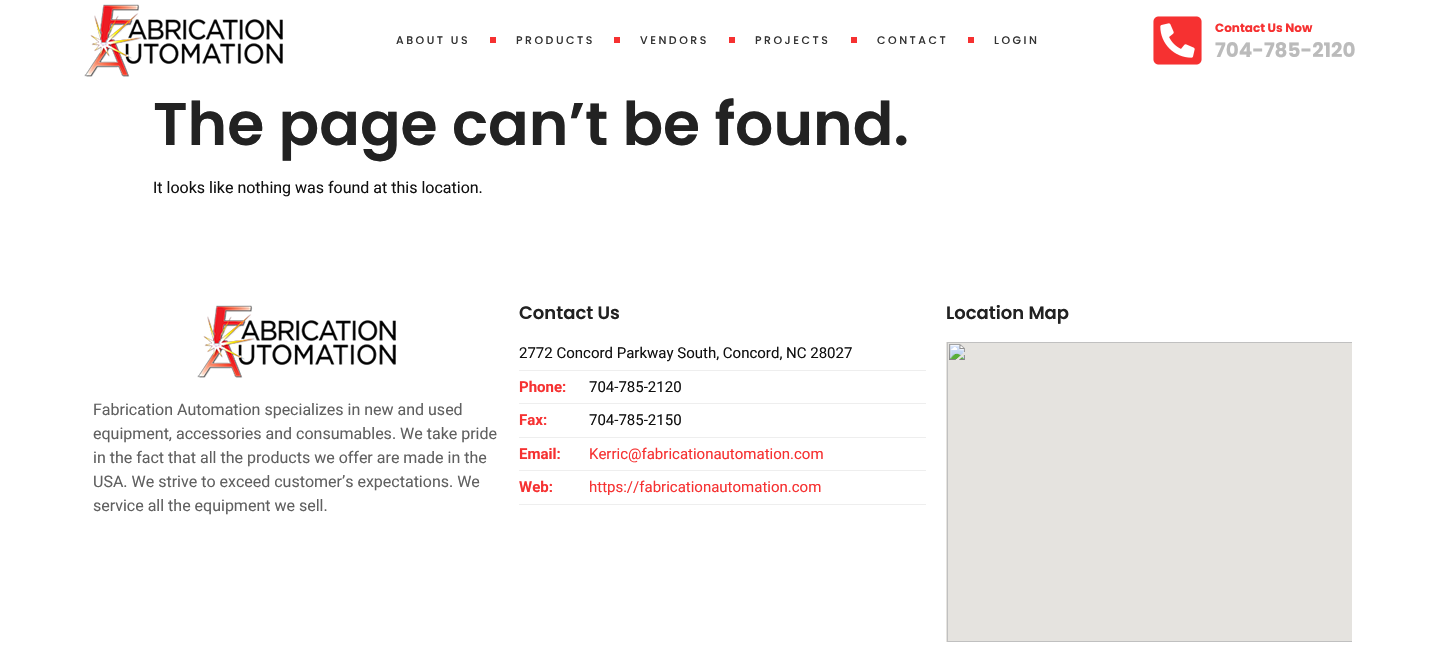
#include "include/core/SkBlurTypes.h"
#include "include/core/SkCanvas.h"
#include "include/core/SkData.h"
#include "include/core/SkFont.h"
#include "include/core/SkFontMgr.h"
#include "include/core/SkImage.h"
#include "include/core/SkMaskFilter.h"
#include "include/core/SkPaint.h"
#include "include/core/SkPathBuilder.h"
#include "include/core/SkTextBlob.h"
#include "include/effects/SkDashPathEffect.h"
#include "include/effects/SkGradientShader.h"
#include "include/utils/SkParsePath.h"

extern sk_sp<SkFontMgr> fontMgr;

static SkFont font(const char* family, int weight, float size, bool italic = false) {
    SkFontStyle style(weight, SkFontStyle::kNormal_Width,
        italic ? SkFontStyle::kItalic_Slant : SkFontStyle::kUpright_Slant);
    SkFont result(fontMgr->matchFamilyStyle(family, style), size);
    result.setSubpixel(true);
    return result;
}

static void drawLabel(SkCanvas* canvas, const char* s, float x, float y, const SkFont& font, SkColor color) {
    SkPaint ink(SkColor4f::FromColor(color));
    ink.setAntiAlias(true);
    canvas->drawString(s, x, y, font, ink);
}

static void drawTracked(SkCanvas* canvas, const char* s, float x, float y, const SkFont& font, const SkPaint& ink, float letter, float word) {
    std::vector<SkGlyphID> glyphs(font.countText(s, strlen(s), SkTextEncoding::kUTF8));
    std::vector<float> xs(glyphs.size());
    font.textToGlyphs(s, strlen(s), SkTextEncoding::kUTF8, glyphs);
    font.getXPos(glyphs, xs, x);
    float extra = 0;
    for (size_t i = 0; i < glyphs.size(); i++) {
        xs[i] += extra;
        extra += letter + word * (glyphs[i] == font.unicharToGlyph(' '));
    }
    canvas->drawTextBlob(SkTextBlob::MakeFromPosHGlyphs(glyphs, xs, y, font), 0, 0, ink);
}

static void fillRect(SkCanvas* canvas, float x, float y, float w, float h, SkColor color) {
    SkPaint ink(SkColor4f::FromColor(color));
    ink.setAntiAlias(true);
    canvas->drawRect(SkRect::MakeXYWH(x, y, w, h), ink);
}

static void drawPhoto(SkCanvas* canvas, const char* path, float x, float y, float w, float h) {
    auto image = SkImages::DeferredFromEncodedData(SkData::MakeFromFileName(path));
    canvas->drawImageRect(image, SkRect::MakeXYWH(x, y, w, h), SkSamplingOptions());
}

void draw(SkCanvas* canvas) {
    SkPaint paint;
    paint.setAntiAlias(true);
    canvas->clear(0xFFFFFFFF);
    drawPhoto(canvas, "assets/img1.png", 84, 4, 199, 73);
    SkFont font1 = font("Poppins", 500, 11);
    paint.setColor(0xFF333333);
    drawTracked(canvas, "ABOUT US", 396, 44, font1, paint, 2.5f, 0);
    fillRect(canvas, 490, 37, 6, 6, 0xFFF63131);
    drawTracked(canvas, "PRODUCTS", 516, 44, font1, paint, 2.5f, 0);
    fillRect(canvas, 614, 37, 6, 6, 0xFFF63131);
    drawTracked(canvas, "VENDORS", 640, 44, font1, paint, 2.5f, 0);
    fillRect(canvas, 729, 37, 6, 6, 0xFFF63131);
    drawTracked(canvas, "PROJECTS", 755, 44, font1, paint, 2.5f, 0);
    fillRect(canvas, 851, 37, 6, 6, 0xFFF63131);
    drawTracked(canvas, "CONTACT", 877, 44, font1, paint, 2.5f, 0);
    fillRect(canvas, 968, 37, 6, 6, 0xFFF63131);
    drawTracked(canvas, "LOGIN", 994, 44, font1, paint, 2.5f, 0);
    drawPhoto(canvas, "assets/img2.png", 1153, 16, 49, 49);
    SkFont font2 = font("Poppins", 700, 12);
    drawLabel(canvas, "Contact Us Now", 1215, 32, font2, 0xFFF63131);
    SkFont font3 = font("Poppins", 700, 20);
    drawLabel(canvas, "704-785-2120", 1215, 57, font3, 0xFFBBBBBB);
    SkFont font4 = font("Poppins", 600, 60);
    drawLabel(canvas, "The page can’t be found.", 153, 145, font4, 0xFF222222);
    SkFont font5 = font("Roboto", 400, 16);
    drawLabel(canvas, "It looks like nothing was found at this location.", 153, 193, font5, 0xFF111111);
    drawPhoto(canvas, "assets/img1.png", 197, 305, 199, 73);
    drawLabel(canvas, "Fabrication Automation specializes in new and used", 93, 415, font5, 0xFF606060);
    drawLabel(canvas, "equipment, accessories and consumables. We take pride", 93, 439, font5, 0xFF606060);
    drawLabel(canvas, "in the fact that all the products we offer are made in the", 93, 463, font5, 0xFF606060);
    drawLabel(canvas, "USA. We strive to exceed customer’s expectations. We", 93, 487, font5, 0xFF606060);
    drawLabel(canvas, "service all the equipment we sell.", 93, 511, font5, 0xFF606060);
    SkFont font6 = font("Poppins", 600, 18);
    drawLabel(canvas, "Contact Us", 519, 319, font6, 0xFF222222);
    fillRect(canvas, 519, 370, 407, 1, 0xFFEEEEEE);
    SkFont font7 = font("Roboto", 400, 15);
    drawLabel(canvas, "2772 Concord Parkway South, Concord, NC 28027", 519, 358, font7, 0xFF111111);
    fillRect(canvas, 519, 403, 407, 1, 0xFFEEEEEE);
    SkFont font8 = font("Roboto", 700, 15);
    drawLabel(canvas, "Phone:", 519, 392, font8, 0xFFF63131);
    drawLabel(canvas, "704-785-2120", 589, 392, font7, 0xFF111111);
    fillRect(canvas, 519, 437, 407, 1, 0xFFEEEEEE);
    drawLabel(canvas, "Fax:", 519, 425, font8, 0xFFF63131);
    drawLabel(canvas, "704-785-2150", 589, 425, font7, 0xFF111111);
    fillRect(canvas, 519, 470, 407, 1, 0xFFEEEEEE);
    drawLabel(canvas, "Email:", 519, 459, font8, 0xFFF63131);
    drawLabel(canvas, "Kerric@fabricationautomation.com", 589, 459, font7, 0xFFF63131);
    fillRect(canvas, 519, 504, 407, 1, 0xFFEEEEEE);
    drawLabel(canvas, "Web:", 519, 492, font8, 0xFFF63131);
    drawLabel(canvas, "https://fabricationautomation.com", 589, 492, font7, 0xFFF63131);
    drawLabel(canvas, "Location Map", 946, 319, font6, 0xFF222222);
    drawPhoto(canvas, "assets/img3.png", 946, 342, 406, 300);
}
